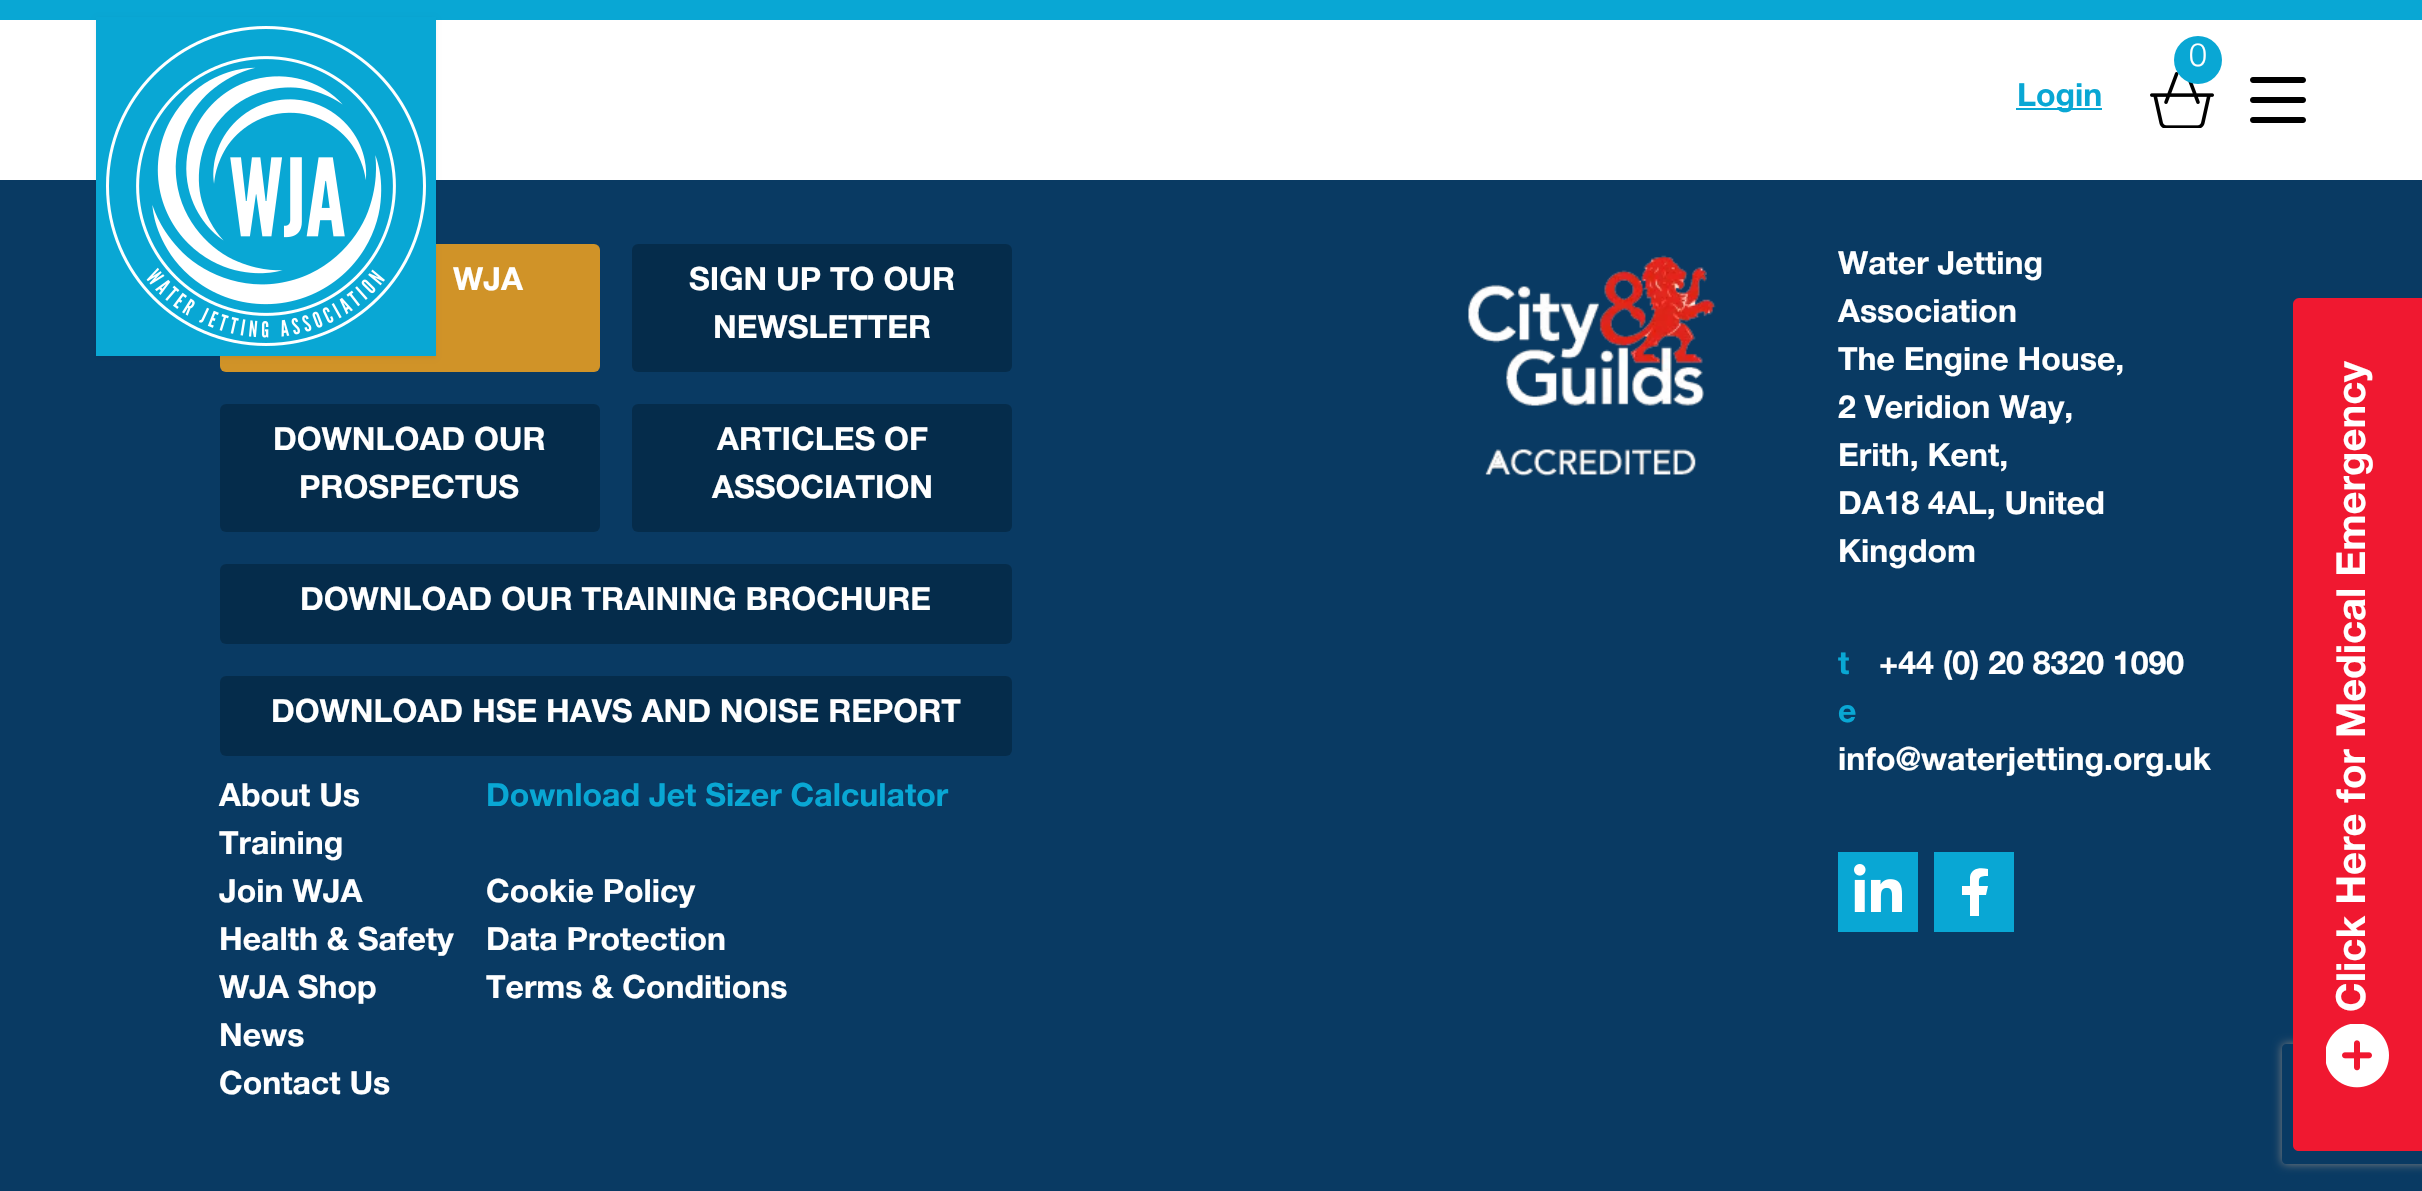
#include "include/core/SkBlurTypes.h"
#include "include/core/SkCanvas.h"
#include "include/core/SkData.h"
#include "include/core/SkFont.h"
#include "include/core/SkFontMgr.h"
#include "include/core/SkImage.h"
#include "include/core/SkMaskFilter.h"
#include "include/core/SkPaint.h"
#include "include/core/SkPathBuilder.h"
#include "include/core/SkTextBlob.h"
#include "include/effects/SkDashPathEffect.h"
#include "include/effects/SkGradientShader.h"
#include "include/utils/SkParsePath.h"

extern sk_sp<SkFontMgr> fontMgr;

static SkFont font(const char* family, int weight, float size, bool italic = false) {
    SkFontStyle style(weight, SkFontStyle::kNormal_Width,
        italic ? SkFontStyle::kItalic_Slant : SkFontStyle::kUpright_Slant);
    SkFont result(fontMgr->matchFamilyStyle(family, style), size);
    result.setSubpixel(true);
    return result;
}

static void drawLabel(SkCanvas* canvas, const char* s, float x, float y, const SkFont& font, SkColor color) {
    SkPaint ink(SkColor4f::FromColor(color));
    ink.setAntiAlias(true);
    canvas->drawString(s, x, y, font, ink);
}

static void fillRect(SkCanvas* canvas, float x, float y, float w, float h, SkColor color) {
    SkPaint ink(SkColor4f::FromColor(color));
    ink.setAntiAlias(true);
    canvas->drawRect(SkRect::MakeXYWH(x, y, w, h), ink);
}

static void fillRRect(SkCanvas* canvas, float x, float y, float w, float h, float radius, SkColor color) {
    SkPaint ink(SkColor4f::FromColor(color));
    ink.setAntiAlias(true);
    canvas->drawRoundRect(SkRect::MakeXYWH(x, y, w, h), radius, radius, ink);
}

static void drawPhoto(SkCanvas* canvas, const char* path, float x, float y, float w, float h) {
    auto image = SkImages::DeferredFromEncodedData(SkData::MakeFromFileName(path));
    canvas->drawImageRect(image, SkRect::MakeXYWH(x, y, w, h), SkSamplingOptions());
}

static SkPath parsePath(const char* data, bool evenOdd = false) {
    SkPath result = *SkParsePath::FromSVGString(data);
    if (evenOdd) result.setFillType(SkPathFillType::kEvenOdd);
    return result;
}

void draw(SkCanvas* canvas) {
    SkPaint paint;
    paint.setAntiAlias(true);
    canvas->clear(0xFF093A63);
    fillRect(canvas, 0, 20, 2422, 160, 0xFFFFFFFF);
    fillRect(canvas, 0, 0, 2422, 20, 0xFF09A7D4);
    fillRRect(canvas, 220, 244, 380, 128, 6, 0xFFD09328);
    paint.setColor(0x0D000000);
    paint.setMaskFilter(SkMaskFilter::MakeBlur(kNormal_SkBlurStyle, 2));
    canvas->drawRect(SkRect::MakeXYWH(96, 18, 340, 340), paint);
    paint.setMaskFilter(nullptr);
    fillRect(canvas, 96, 17, 340, 339, 0xFF09A7D4);
    drawPhoto(canvas, "assets/img1.png", 106, 26, 320, 320);
    drawPhoto(canvas, "assets/img2.png", 2150, 72, 64, 56);
    paint.setColor(0xFF09A7D4);
    canvas->drawCircle(2198, 60, 24, paint);
    SkFont font1 = font("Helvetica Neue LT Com", 300, 32);
    drawLabel(canvas, "0", 2189, 66, font1, 0xFFFFFFFF);
    fillRect(canvas, 2016, 108, 86, 2, 0xFF09A7D4);
    SkFont font2 = font("Helvetica Neue LT Com", 700, 32);
    drawLabel(canvas, "Login", 2017, 106, font2, 0xFF09A7D4);
    drawPhoto(canvas, "assets/img3.png", 2250, 77, 56, 46);
    drawLabel(canvas, "WJA", 453, 290, font2, 0xFFFFFFFF);
    fillRRect(canvas, 632, 244, 380, 128, 6, 0xFF052C4B);
    drawLabel(canvas, "SIGN UP TO OUR", 689, 290, font2, 0xFFFFFFFF);
    drawLabel(canvas, "NEWSLETTER", 713, 338, font2, 0xFFFFFFFF);
    fillRRect(canvas, 220, 404, 380, 128, 6, 0xFF052C4B);
    drawLabel(canvas, "DOWNLOAD OUR", 273, 450, font2, 0xFFFFFFFF);
    drawLabel(canvas, "PROSPECTUS", 299, 498, font2, 0xFFFFFFFF);
    fillRRect(canvas, 632, 404, 380, 128, 6, 0xFF052C4B);
    drawLabel(canvas, "ARTICLES OF", 717, 450, font2, 0xFFFFFFFF);
    drawLabel(canvas, "ASSOCIATION", 712, 498, font2, 0xFFFFFFFF);
    fillRRect(canvas, 220, 564, 792, 80, 6, 0xFF052C4B);
    drawLabel(canvas, "DOWNLOAD OUR TRAINING BROCHURE", 300, 610, font2, 0xFFFFFFFF);
    fillRRect(canvas, 220, 676, 792, 80, 6, 0xFF052C4B);
    drawLabel(canvas, "DOWNLOAD HSE HAVS AND NOISE REPORT", 271, 722, font2, 0xFFFFFFFF);
    drawLabel(canvas, "About Us", 219, 806, font2, 0xFFFFFFFF);
    drawLabel(canvas, "Training", 219, 854, font2, 0xFFFFFFFF);
    drawLabel(canvas, "Join WJA", 219, 902, font2, 0xFFFFFFFF);
    drawLabel(canvas, "Health & Safety", 219, 950, font2, 0xFFFFFFFF);
    drawLabel(canvas, "WJA Shop", 219, 998, font2, 0xFFFFFFFF);
    drawLabel(canvas, "News", 219, 1046, font2, 0xFFFFFFFF);
    drawLabel(canvas, "Contact Us", 219, 1094, font2, 0xFFFFFFFF);
    drawLabel(canvas, "Download Jet Sizer Calculator", 486, 806, font2, 0xFF09A7D4);
    drawLabel(canvas, "Cookie Policy", 486, 902, font2, 0xFFFFFFFF);
    drawLabel(canvas, "Data Protection", 486, 950, font2, 0xFFFFFFFF);
    drawLabel(canvas, "Terms & Conditions", 486, 998, font2, 0xFFFFFFFF);
    drawPhoto(canvas, "assets/img4.png", 1468, 255, 248, 221);
    drawLabel(canvas, "Water Jetting", 1838, 274, font2, 0xFFFFFFFF);
    drawLabel(canvas, "Association", 1838, 322, font2, 0xFFFFFFFF);
    drawLabel(canvas, "The Engine House,", 1838, 370, font2, 0xFFFFFFFF);
    drawLabel(canvas, "2 Veridion Way,", 1838, 418, font2, 0xFFFFFFFF);
    drawLabel(canvas, "Erith, Kent,", 1838, 466, font2, 0xFFFFFFFF);
    drawLabel(canvas, "DA18 4AL, United", 1838, 514, font2, 0xFFFFFFFF);
    drawLabel(canvas, "Kingdom", 1838, 562, font2, 0xFFFFFFFF);
    drawLabel(canvas, "t", 1838, 674, font2, 0xFF09A7D4);
    drawLabel(canvas, "+44 (0) 20 8320 1090", 1879, 674, font2, 0xFFFFFFFF);
    drawLabel(canvas, "e", 1838, 722, font2, 0xFF09A7D4);
    drawLabel(canvas, "info@waterjetting.org.uk", 1838, 770, font2, 0xFFFFFFFF);
    fillRect(canvas, 1838, 852, 80, 80, 0xFF09A7D4);
    drawPhoto(canvas, "assets/img5.png", 1854, 864, 48, 48);
    fillRect(canvas, 1934, 852, 80, 80, 0xFF09A7D4);
    paint.setColor(0xFFFFFFFF);
    canvas->drawPath(parsePath("M1986 895L1988 886H1979C1979 878 1978 876 1988 876V869C1980 867 1971 868 1970 877V886H1962V895H1970V916H1979V895Z"), paint);
    canvas->save();
    canvas->clipPath(parsePath("M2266 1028H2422V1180H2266ZM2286 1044H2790C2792 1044 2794 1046 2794 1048V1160C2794 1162 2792 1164 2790 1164H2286C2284 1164 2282 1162 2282 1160V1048C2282 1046 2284 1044 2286 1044Z", true), true);
    paint.setColor(0xFF808080);
    paint.setMaskFilter(SkMaskFilter::MakeBlur(kNormal_SkBlurStyle, 5));
    canvas->drawRoundRect(SkRect::MakeXYWH(2282, 1044, 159, 120), 4, 4, paint);
    paint.setMaskFilter(nullptr);
    canvas->restore();
    paint.setColor(0xFFF01830);
    canvas->drawPath(parsePath("M2422 1151H2299C2296 1151 2293 1149 2293 1145V304C2293 301 2296 298 2299 298H2422Z"), paint);
    SkFont font3 = font("Helvetica Neue LT Com", 700, 40);
    canvas->save();
    canvas->rotate(-90, 2365, 1012);
    drawLabel(canvas, "Click Here for Medical Emergency", 2365, 1012, font3, 0xFFFFFFFF);
    canvas->restore();
    drawPhoto(canvas, "assets/img6.png", 2326, 1024, 63, 64);
}
